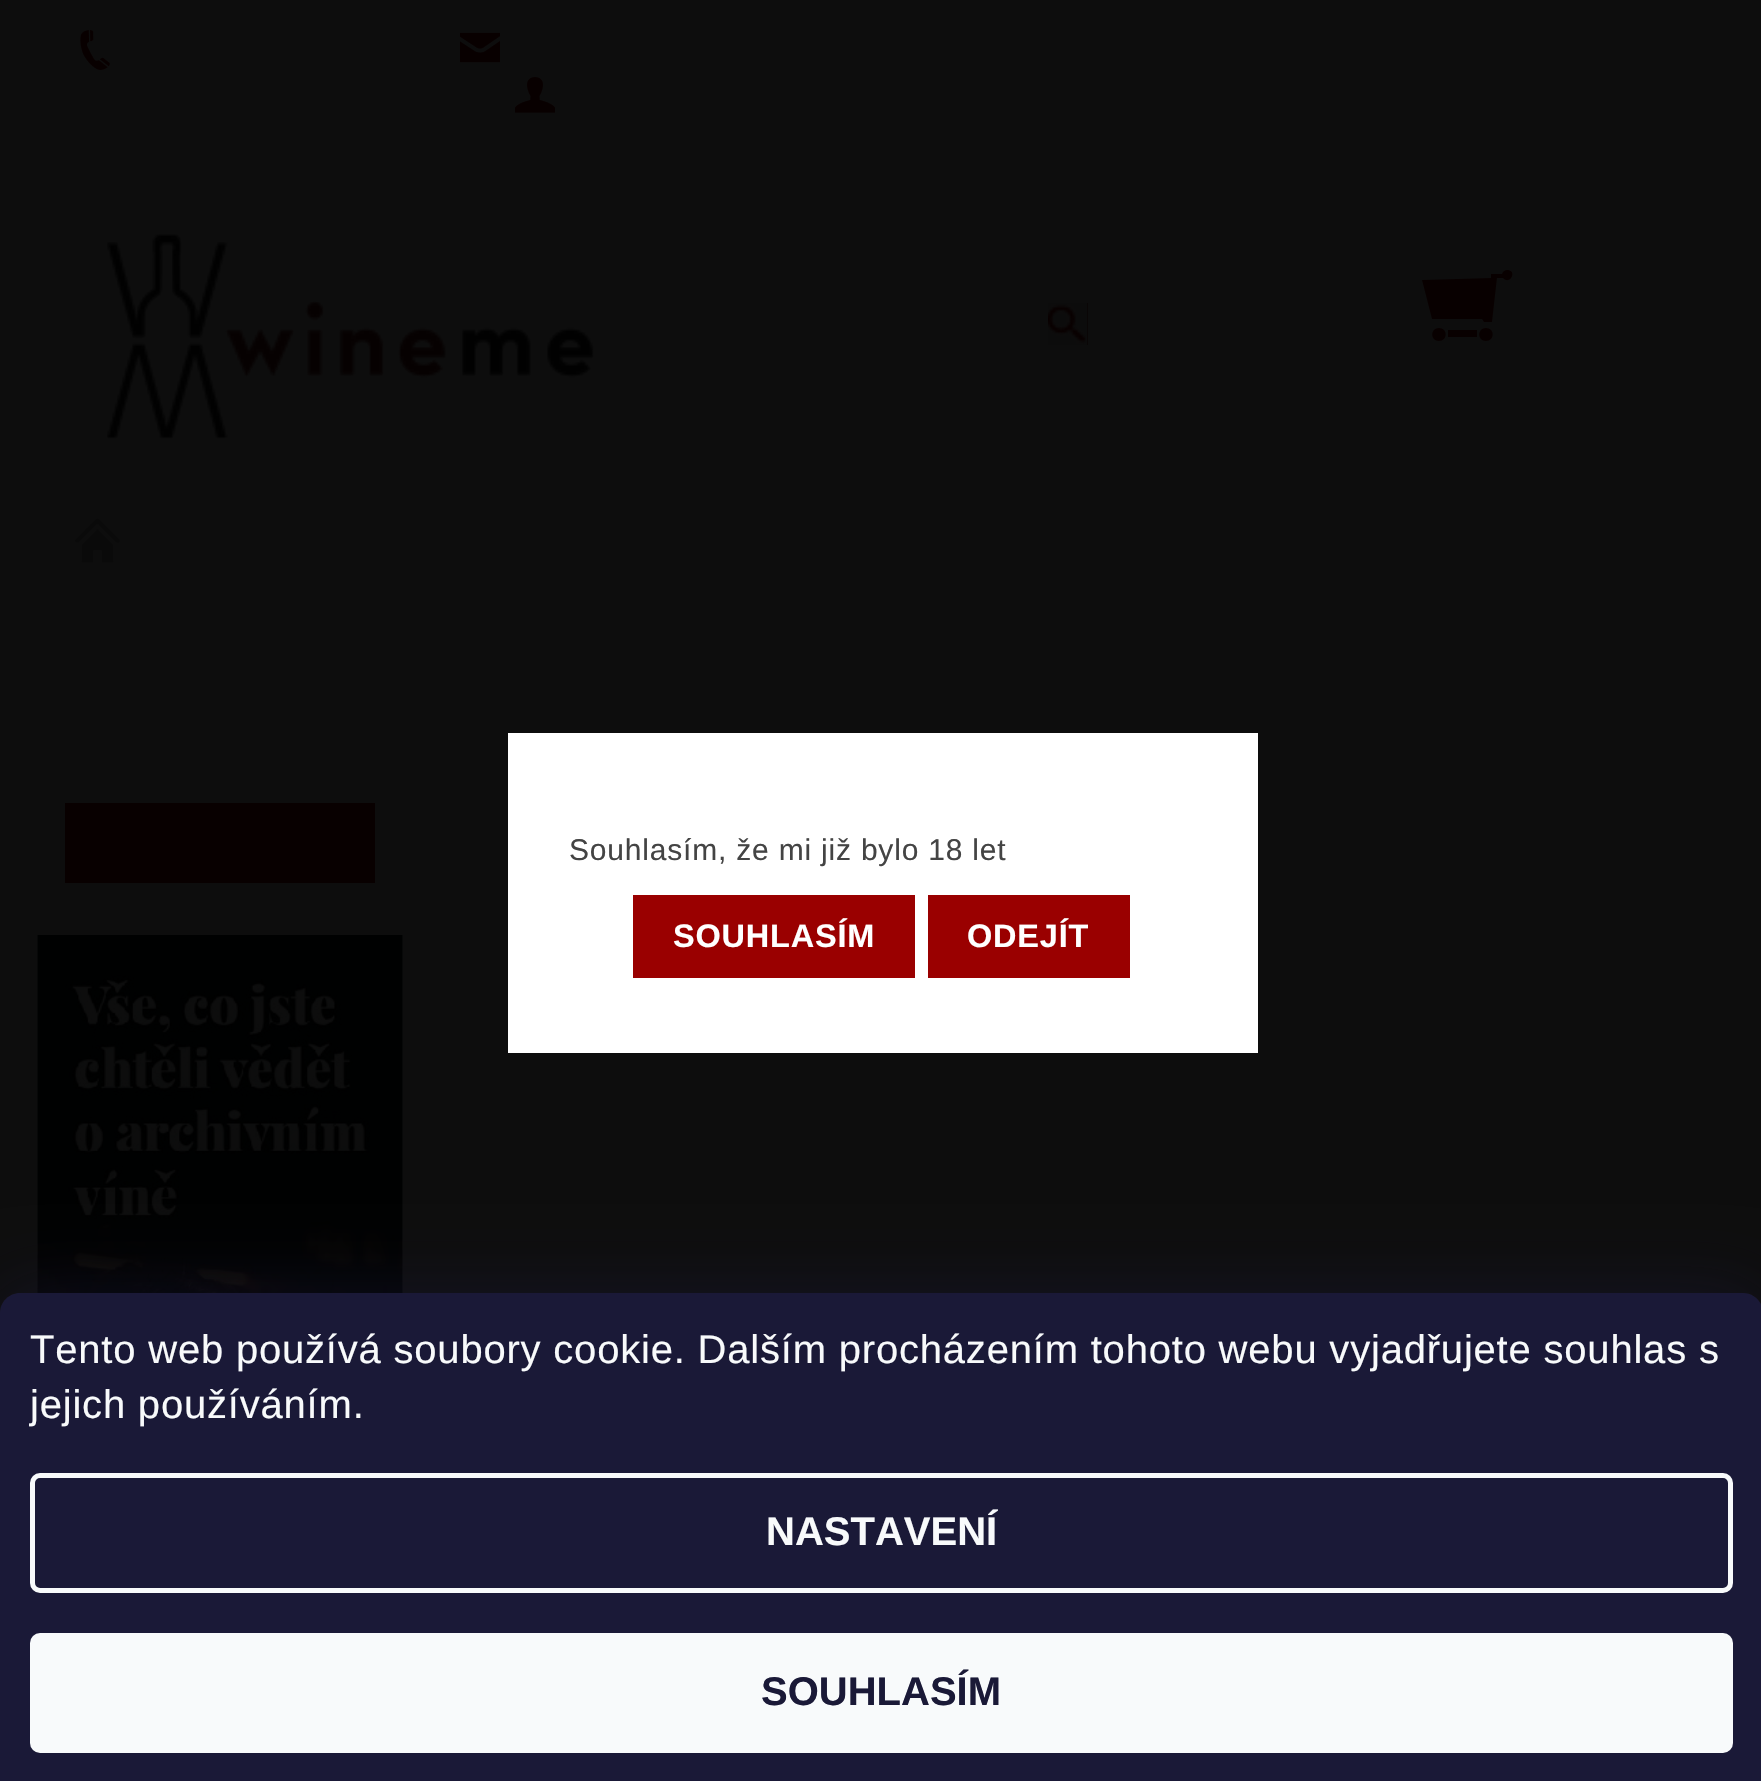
#include "include/core/SkBlurTypes.h"
#include "include/core/SkCanvas.h"
#include "include/core/SkData.h"
#include "include/core/SkFont.h"
#include "include/core/SkFontMgr.h"
#include "include/core/SkImage.h"
#include "include/core/SkMaskFilter.h"
#include "include/core/SkPaint.h"
#include "include/core/SkPathBuilder.h"
#include "include/core/SkTextBlob.h"
#include "include/effects/SkDashPathEffect.h"
#include "include/effects/SkGradientShader.h"
#include "include/utils/SkParsePath.h"

extern sk_sp<SkFontMgr> fontMgr;

static SkFont font(const char* family, int weight, float size, bool italic = false) {
    SkFontStyle style(weight, SkFontStyle::kNormal_Width,
        italic ? SkFontStyle::kItalic_Slant : SkFontStyle::kUpright_Slant);
    SkFont result(fontMgr->matchFamilyStyle(family, style), size);
    result.setSubpixel(true);
    return result;
}

static void drawLabel(SkCanvas* canvas, const char* s, float x, float y, const SkFont& font, SkColor color) {
    SkPaint ink(SkColor4f::FromColor(color));
    ink.setAntiAlias(true);
    canvas->drawString(s, x, y, font, ink);
}

static void drawTracked(SkCanvas* canvas, const char* s, float x, float y, const SkFont& font, const SkPaint& ink, float letter, float word) {
    std::vector<SkGlyphID> glyphs(font.countText(s, strlen(s), SkTextEncoding::kUTF8));
    std::vector<float> xs(glyphs.size());
    font.textToGlyphs(s, strlen(s), SkTextEncoding::kUTF8, glyphs);
    font.getXPos(glyphs, xs, x);
    float extra = 0;
    for (size_t i = 0; i < glyphs.size(); i++) {
        xs[i] += extra;
        extra += letter + word * (glyphs[i] == font.unicharToGlyph(' '));
    }
    canvas->drawTextBlob(SkTextBlob::MakeFromPosHGlyphs(glyphs, xs, y, font), 0, 0, ink);
}

static void fillRect(SkCanvas* canvas, float x, float y, float w, float h, SkColor color) {
    SkPaint ink(SkColor4f::FromColor(color));
    ink.setAntiAlias(true);
    canvas->drawRect(SkRect::MakeXYWH(x, y, w, h), ink);
}

static void fillRRect(SkCanvas* canvas, float x, float y, float w, float h, float radius, SkColor color) {
    SkPaint ink(SkColor4f::FromColor(color));
    ink.setAntiAlias(true);
    canvas->drawRoundRect(SkRect::MakeXYWH(x, y, w, h), radius, radius, ink);
}

static void drawPhoto(SkCanvas* canvas, const char* path, float x, float y, float w, float h) {
    auto image = SkImages::DeferredFromEncodedData(SkData::MakeFromFileName(path));
    canvas->drawImageRect(image, SkRect::MakeXYWH(x, y, w, h), SkSamplingOptions());
}

static SkPath parsePath(const char* data, bool evenOdd = false) {
    SkPath result = *SkParsePath::FromSVGString(data);
    if (evenOdd) result.setFillType(SkPathFillType::kEvenOdd);
    return result;
}

void draw(SkCanvas* canvas) {
    SkPaint paint;
    paint.setAntiAlias(true);
    canvas->clear(0xFF0D0D0D);
    drawPhoto(canvas, "assets/img1.png", 80, 30, 30, 40);
    drawPhoto(canvas, "assets/img2.png", 460, 32, 40, 31);
    drawPhoto(canvas, "assets/img3.png", 515, 77, 40, 36);
    drawPhoto(canvas, "assets/img4.png", 106, 234, 488, 205);
    fillRect(canvas, 1048, 303, 40, 42, 0xFF080000);
    drawPhoto(canvas, "assets/img5.png", 1048, 303, 40, 42);
    paint.setColor(0xFF080000);
    canvas->drawPath(parsePath("M1448 337H1477V330H1448ZM1439 328C1430 328 1430 341 1439 341C1448 341 1448 328 1439 328ZM1486 328C1477 328 1477 341 1486 341C1495 341 1495 328 1486 328ZM1507 270C1505 270 1503 271 1502 274H1491V278L1422 280L1432 319H1482L1484 322H1492L1497 278H1503C1510 286 1518 270 1507 270Z"), paint);
    drawPhoto(canvas, "assets/img6.png", 75, 518, 45, 45);
    fillRect(canvas, 65, 803, 310, 80, 0xFF080000);
    drawPhoto(canvas, "assets/img7.png", 37, 935, 366, 358);
    fillRect(canvas, 508, 733, 750, 320, 0xFFFFFFFF);
    SkFont font1 = font("Liberation Sans", 400, 30);
    paint.setColor(0xFF444444);
    drawTracked(canvas, "Souhlasím, že mi již bylo 18 let", 569, 860, font1, paint, 0.8f, 0);
    fillRect(canvas, 633, 895, 282, 83, 0xFF9A0000);
    SkFont font2 = font("Liberation Sans", 700, 32.5f);
    paint.setColor(0xFFFFFFFF);
    drawTracked(canvas, "SOUHLASÍM", 673, 947, font2, paint, 0.8f, 0);
    fillRect(canvas, 928, 895, 202, 83, 0xFF9A0000);
    drawTracked(canvas, "ODEJÍT", 967, 947, font2, paint, 0.8f, 0);
    paint.setColor(0x801B1939);
    paint.setMaskFilter(SkMaskFilter::MakeBlur(kNormal_SkBlurStyle, 37.5f));
    canvas->drawRoundRect(SkRect::MakeXYWH(0, 1293, 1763, 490), 20, 20, paint);
    paint.setMaskFilter(nullptr);
    paint.setColor(0xFF1A1937);
    canvas->drawPath(parsePath("M20 1293H1743C1754 1293 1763 1302 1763 1313V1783H0V1313C0 1302 9 1293 20 1293Z"), paint);
    SkFont font3 = font("Liberation Sans", 400, 40);
    paint.setColor(0xFFF8FAFB);
    drawTracked(canvas, "Tento web používá soubory cookie. Dalším procházením tohoto webu vyjadřujete souhlas s", 30, 1363, font3, paint, 0.8f, 0);
    drawTracked(canvas, "jejich používáním.", 30, 1418, font3, paint, 0.8f, 0);
    paint.setStroke(true);
    paint.setStrokeWidth(5);
    canvas->drawRoundRect(SkRect::MakeXYWH(32.5f, 1475.5f, 1698, 115), 7.5f, 7.5f, paint);
    SkFont font4 = font("Liberation Sans", 700, 40);
    drawLabel(canvas, "NASTAVENÍ", 766, 1545, font4, 0xFFF8FAFB);
    fillRRect(canvas, 30, 1633, 1703, 120, 10, 0xFFF8FAFB);
    drawLabel(canvas, "SOUHLASÍM", 761, 1705, font4, 0xFF1A1937);
}
